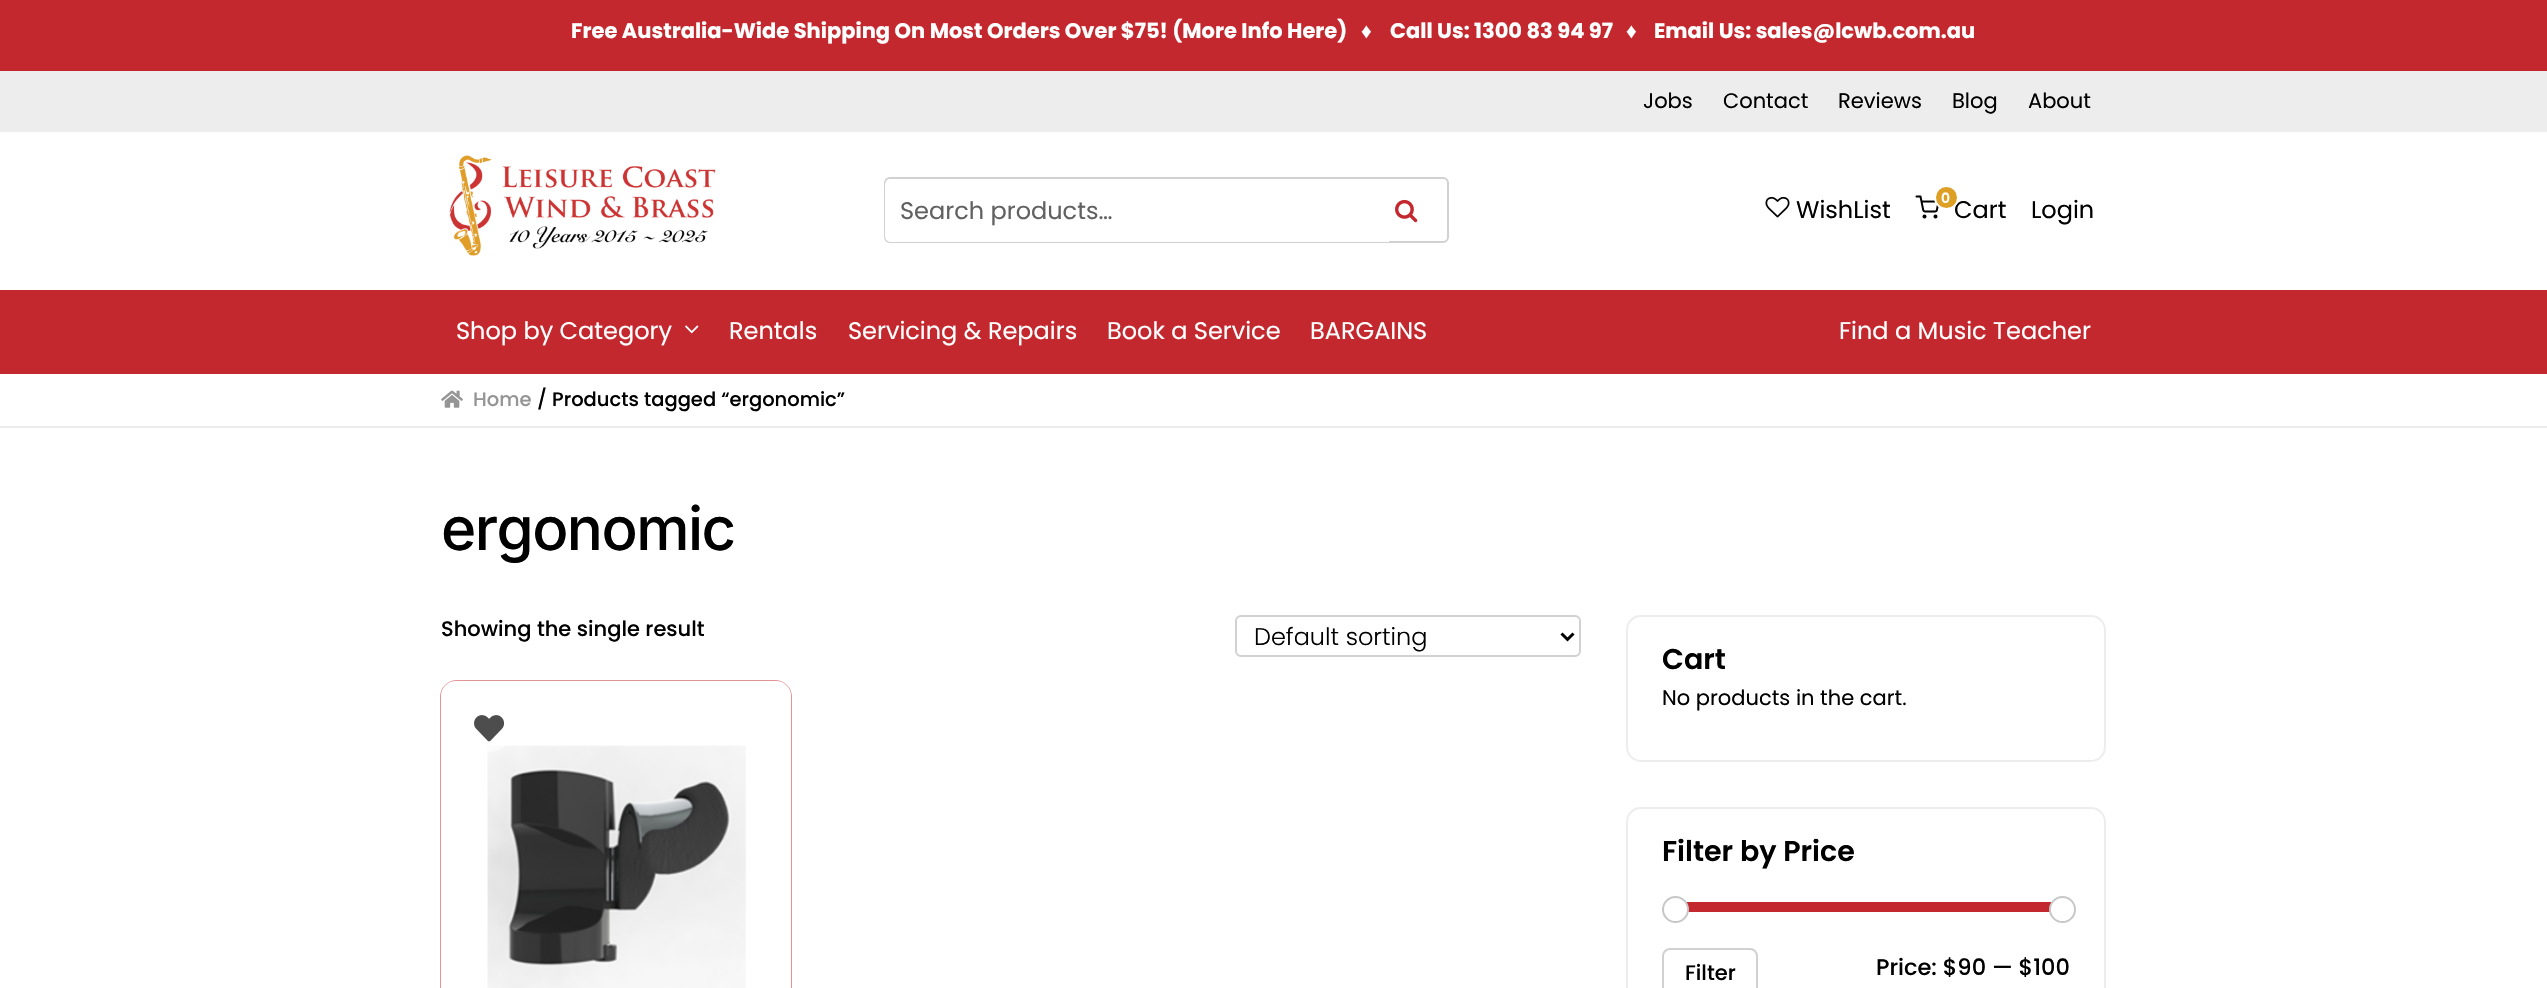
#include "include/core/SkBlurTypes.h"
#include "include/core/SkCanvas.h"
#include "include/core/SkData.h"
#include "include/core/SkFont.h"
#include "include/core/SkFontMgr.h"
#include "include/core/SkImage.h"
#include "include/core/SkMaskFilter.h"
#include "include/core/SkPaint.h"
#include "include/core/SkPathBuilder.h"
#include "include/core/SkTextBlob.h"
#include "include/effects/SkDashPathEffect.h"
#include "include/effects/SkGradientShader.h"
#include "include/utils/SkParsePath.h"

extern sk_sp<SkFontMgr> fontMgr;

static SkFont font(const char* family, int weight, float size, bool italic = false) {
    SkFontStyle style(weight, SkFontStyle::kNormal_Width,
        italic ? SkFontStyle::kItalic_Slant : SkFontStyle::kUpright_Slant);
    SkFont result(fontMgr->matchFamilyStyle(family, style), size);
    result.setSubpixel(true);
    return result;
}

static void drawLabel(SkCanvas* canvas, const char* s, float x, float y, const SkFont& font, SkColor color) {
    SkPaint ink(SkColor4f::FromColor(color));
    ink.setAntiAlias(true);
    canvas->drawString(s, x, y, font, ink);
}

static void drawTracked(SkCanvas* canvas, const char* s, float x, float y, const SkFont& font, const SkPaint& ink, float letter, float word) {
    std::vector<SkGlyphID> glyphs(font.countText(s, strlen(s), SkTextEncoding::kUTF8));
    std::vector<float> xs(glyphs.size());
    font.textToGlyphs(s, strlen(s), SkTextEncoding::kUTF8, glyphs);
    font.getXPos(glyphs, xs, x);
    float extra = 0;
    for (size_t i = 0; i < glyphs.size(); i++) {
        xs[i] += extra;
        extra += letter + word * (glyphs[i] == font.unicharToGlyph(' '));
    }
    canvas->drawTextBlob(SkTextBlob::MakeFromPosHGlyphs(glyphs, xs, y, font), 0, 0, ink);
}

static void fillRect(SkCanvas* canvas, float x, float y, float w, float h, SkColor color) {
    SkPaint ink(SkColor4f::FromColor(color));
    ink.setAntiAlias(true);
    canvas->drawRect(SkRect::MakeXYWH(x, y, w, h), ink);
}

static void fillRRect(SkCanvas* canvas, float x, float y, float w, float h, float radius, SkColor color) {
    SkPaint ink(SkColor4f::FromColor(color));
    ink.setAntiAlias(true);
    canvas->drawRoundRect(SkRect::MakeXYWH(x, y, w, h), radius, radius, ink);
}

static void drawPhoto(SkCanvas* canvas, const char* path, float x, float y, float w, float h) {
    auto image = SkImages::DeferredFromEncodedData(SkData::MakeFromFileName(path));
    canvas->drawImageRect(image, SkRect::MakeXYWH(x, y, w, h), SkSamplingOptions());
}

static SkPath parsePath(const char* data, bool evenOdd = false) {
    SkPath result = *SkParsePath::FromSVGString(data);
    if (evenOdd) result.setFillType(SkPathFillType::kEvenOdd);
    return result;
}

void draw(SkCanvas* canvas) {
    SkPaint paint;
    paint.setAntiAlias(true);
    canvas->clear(0xFFFFFFFF);
    fillRect(canvas, 0, 0, 2547, 71, 0xFFC3282E);
    SkFont font1 = font("Poppins", 700, 21);
    drawLabel(canvas, "Free Australia-Wide Shipping On Most Orders Over $75! (More Info Here)", 571, 38, font1, 0xFFFFFFFF);
    SkFont font2 = font("Liberation Sans", 700, 21);
    drawLabel(canvas, "♦", 1361, 38, font2, 0xFFFFFFFF);
    drawLabel(canvas, "Call Us: 1300 83 94 97", 1390, 38, font1, 0xFFFFFFFF);
    drawLabel(canvas, "♦", 1626, 38, font2, 0xFFFFFFFF);
    drawLabel(canvas, "Email Us: sales@lcwb.com.au", 1654, 38, font1, 0xFFFFFFFF);
    fillRect(canvas, 0, 71, 2547, 61, 0xFFEDEDED);
    SkFont font3 = font("Poppins", 400, 21);
    drawLabel(canvas, "Jobs", 1643, 108, font3, 0xFF000000);
    drawLabel(canvas, "Contact", 1723, 108, font3, 0xFF000000);
    drawLabel(canvas, "Reviews", 1838, 108, font3, 0xFF000000);
    drawLabel(canvas, "Blog", 1952, 108, font3, 0xFF000000);
    drawLabel(canvas, "About", 2028, 108, font3, 0xFF000000);
    drawPhoto(canvas, "assets/img1.png", 449, 155, 267, 101);
    paint.setStroke(true);
    paint.setStrokeWidth(2);
    paint.setColor(0xFFD1D1D1);
    canvas->drawRoundRect(SkRect::MakeXYWH(885, 178, 563, 64), 5, 5, paint);
    canvas->save();
    canvas->clipPath(parsePath("M890 179H1443C1446 179 1448 181 1448 184V237C1448 240 1446 242 1443 242H890C887 242 885 240 885 237V184C885 181 887 179 890 179Z"), true);
    paint.setStroke(false);
    paint.setColor(0xFFFFFFFF);
    canvas->drawPath(parsePath("M891 179H1389V242H891C887.5 242 885 239.5 885 236V185C885 181.5 887.5 179 891 179Z"), paint);
    canvas->restore();
    SkFont font4 = font("Poppins", 400, 24);
    drawLabel(canvas, "Search products…", 900, 219, font4, 0xFF616161);
    drawPhoto(canvas, "assets/img2.png", 1395, 199, 23, 24);
    drawPhoto(canvas, "assets/img3.png", 1765, 196, 25, 22);
    drawLabel(canvas, "WishList", 1796, 218, font4, 0xFF000000);
    drawPhoto(canvas, "assets/img4.png", 1915, 195, 24, 24);
    drawLabel(canvas, "Cart", 1954, 218, font4, 0xFF000000);
    paint.setColor(0xFFDEA024);
    canvas->drawCircle(1946.5f, 197.5f, 11.5f, paint);
    paint.setStroke(true);
    paint.setColor(0xFFFFFFFF);
    canvas->drawCircle(1946.5f, 197.5f, 11.5f, paint);
    SkFont font5 = font("Poppins", 600, 14);
    drawLabel(canvas, "0", 1941, 203, font5, 0xFFFFFFFF);
    drawLabel(canvas, "Login", 2031, 218, font4, 0xFF000000);
    fillRect(canvas, 0, 290, 2547, 84, 0xFFC3282E);
    drawLabel(canvas, "Shop by Category", 456, 339, font4, 0xFFFFFFFF);
    drawPhoto(canvas, "assets/img5.png", 685, 325, 14, 9);
    drawLabel(canvas, "Rentals", 729, 339, font4, 0xFFFFFFFF);
    drawLabel(canvas, "Servicing & Repairs", 848, 339, font4, 0xFFFFFFFF);
    drawLabel(canvas, "Book a Service", 1107, 339, font4, 0xFFFFFFFF);
    drawLabel(canvas, "BARGAINS", 1310, 339, font4, 0xFFFFFFFF);
    drawLabel(canvas, "Find a Music Teacher", 1839, 339, font4, 0xFFFFFFFF);
    fillRect(canvas, 0, 426, 2547, 2, 0xFFEDEDED);
    drawPhoto(canvas, "assets/img6.png", 441, 390, 22, 18);
    SkFont font6 = font("Poppins", 500, 19.5f);
    drawLabel(canvas, "Home", 473, 406, font6, 0xFF959595);
    drawLabel(canvas, "/ Products tagged “ergonomic”", 537, 406, font6, 0xFF000000);
    SkFont font7 = font("Inter", 500, 60);
    paint.setStroke(false);
    paint.setColor(0xFF000000);
    drawTracked(canvas, "ergonomic", 441, 550, font7, paint, -1.5f, 0);
    SkFont font8 = font("Poppins", 500, 21);
    drawLabel(canvas, "Showing the single result", 441, 636, font8, 0xFF000000);
    paint.setStroke(true);
    paint.setColor(0xFFD1D1D1);
    canvas->drawRoundRect(SkRect::MakeXYWH(1236, 616, 344, 40), 5, 5, paint);
    paint.setStrokeWidth(3);
    paint.setColor(0xFF000000);
    canvas->drawPath(parsePath("M1561.5 633.5L1567.5 639.5L1573.5 633.5"), paint);
    SkFont font9 = font("Poppins", 300, 24);
    drawLabel(canvas, "Default sorting", 1254, 645, font9, 0xFF000000);
    paint.setStrokeWidth(2);
    paint.setColor(0xFFE19497);
    canvas->drawRoundRect(SkRect::MakeXYWH(441, 681, 350, 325), 16, 16, paint);
    fillRRect(canvas, 441, 681, 350, 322, 15, 0xFFFFFFFF);
    drawPhoto(canvas, "assets/img8.png", 487, 745, 259, 243);
    paint.setStroke(false);
    paint.setColor(0x8FFFFFFF);
    canvas->drawCircle(489.5f, 729.5f, 22.5f, paint);
    drawPhoto(canvas, "assets/img7.png", 474, 715, 30, 27);
    paint.setStroke(true);
    paint.setColor(0xFFEDEDED);
    canvas->drawRoundRect(SkRect::MakeXYWH(1627, 616, 478, 145), 14, 14, paint);
    SkFont font10 = font("Poppins", 600, 28.5f);
    drawLabel(canvas, "Cart", 1662, 669, font10, 0xFF000000);
    drawLabel(canvas, "No products in the cart.", 1662, 705, font3, 0xFF000000);
    canvas->drawRoundRect(SkRect::MakeXYWH(1627, 808, 478, 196), 14, 14, paint);
    drawLabel(canvas, "Filter by Price", 1662, 861, font10, 0xFF000000);
    fillRect(canvas, 1686, 902, 366, 10, 0xFFC3282E);
    paint.setStroke(false);
    paint.setColor(0xFFFFFFFF);
    canvas->drawCircle(1675.5f, 909.5f, 12.5f, paint);
    paint.setStroke(true);
    paint.setColor(0xFFC7C7C7);
    canvas->drawCircle(1675.5f, 909.5f, 12.5f, paint);
    paint.setStroke(false);
    paint.setColor(0xFFFFFFFF);
    canvas->drawCircle(2062.5f, 909.5f, 12.5f, paint);
    paint.setStroke(true);
    paint.setColor(0xFFC7C7C7);
    canvas->drawCircle(2062.5f, 909.5f, 12.5f, paint);
    paint.setColor(0xFFD1D1D1);
    canvas->drawRoundRect(SkRect::MakeXYWH(1663, 949, 94, 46), 7, 7, paint);
    drawLabel(canvas, "Filter", 1685, 980, font8, 0xFF000000);
    SkFont font11 = font("Poppins", 500, 22.5f);
    drawLabel(canvas, "Price: $90 — $100", 1876, 975, font11, 0xFF000000);
}
